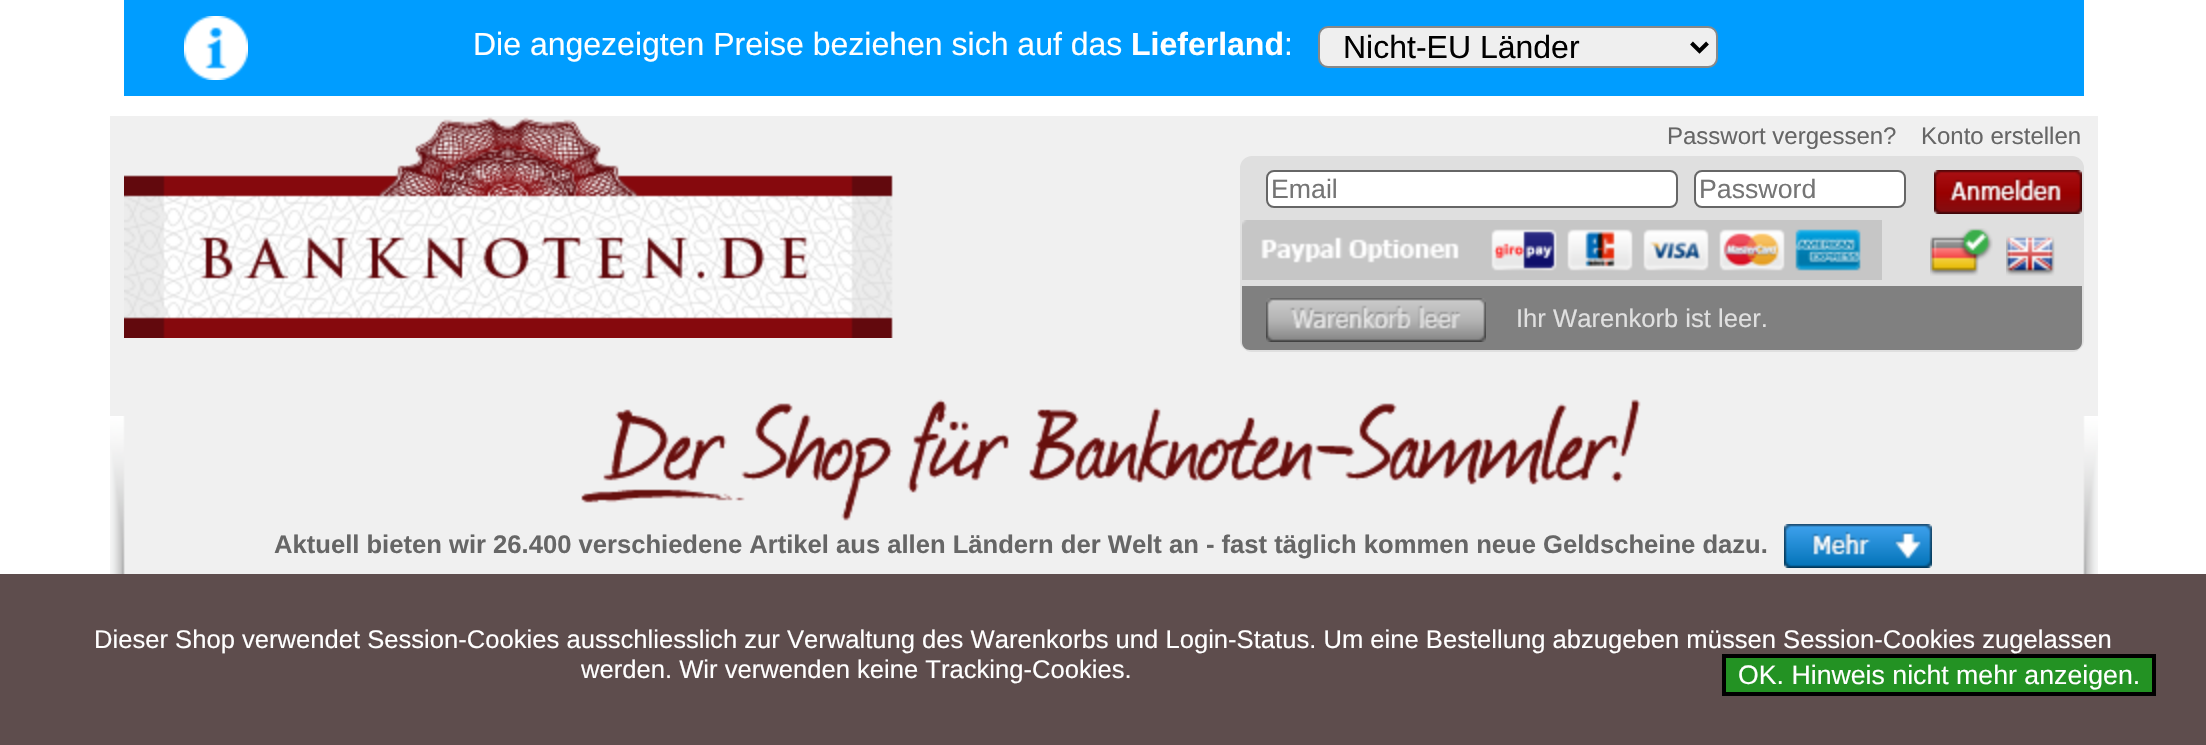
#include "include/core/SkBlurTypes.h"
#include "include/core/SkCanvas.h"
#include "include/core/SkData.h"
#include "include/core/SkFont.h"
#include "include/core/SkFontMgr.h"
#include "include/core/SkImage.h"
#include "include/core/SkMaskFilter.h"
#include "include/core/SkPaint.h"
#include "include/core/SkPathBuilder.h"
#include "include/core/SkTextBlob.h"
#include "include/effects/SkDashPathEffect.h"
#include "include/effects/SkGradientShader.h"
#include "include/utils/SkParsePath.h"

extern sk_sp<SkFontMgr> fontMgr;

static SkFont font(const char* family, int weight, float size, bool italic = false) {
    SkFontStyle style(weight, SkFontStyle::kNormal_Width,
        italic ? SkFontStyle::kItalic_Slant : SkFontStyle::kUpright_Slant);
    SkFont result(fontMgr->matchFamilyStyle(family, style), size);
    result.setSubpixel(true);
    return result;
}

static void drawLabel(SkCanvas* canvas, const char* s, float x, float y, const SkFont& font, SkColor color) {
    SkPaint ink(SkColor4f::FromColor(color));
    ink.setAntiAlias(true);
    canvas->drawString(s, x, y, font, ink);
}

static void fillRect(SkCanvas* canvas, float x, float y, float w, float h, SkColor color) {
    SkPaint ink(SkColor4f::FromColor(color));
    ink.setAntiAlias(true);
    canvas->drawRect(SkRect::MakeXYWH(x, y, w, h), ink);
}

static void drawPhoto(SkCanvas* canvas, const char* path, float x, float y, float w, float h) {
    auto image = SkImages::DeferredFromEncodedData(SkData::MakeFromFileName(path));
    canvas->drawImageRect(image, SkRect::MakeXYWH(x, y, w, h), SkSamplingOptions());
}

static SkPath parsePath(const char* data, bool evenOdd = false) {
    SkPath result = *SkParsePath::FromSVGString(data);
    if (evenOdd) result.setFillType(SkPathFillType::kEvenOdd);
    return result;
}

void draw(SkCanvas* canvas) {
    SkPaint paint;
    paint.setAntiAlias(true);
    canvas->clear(0xFFFFFFFF);
    fillRect(canvas, 124, 0, 1960, 96, 0xFF009DFF);
    drawPhoto(canvas, "assets/img1.png", 184, 16, 64, 64);
    SkFont font1 = font("Liberation Sans", 400, 32);
    drawLabel(canvas, "Die angezeigten Preise beziehen sich auf das", 473, 55, font1, 0xFFFFFFFF);
    SkFont font2 = font("Liberation Sans", 700, 32);
    drawLabel(canvas, "Lieferland", 1131, 55, font2, 0xFFFFFFFF);
    drawLabel(canvas, ":", 1284, 55, font1, 0xFFFFFFFF);
    paint.setColor(0xFFEFEFEF);
    canvas->drawRoundRect(SkRect::MakeXYWH(1319, 27, 398, 40), 9, 9, paint);
    paint.setStroke(true);
    paint.setStrokeWidth(2);
    paint.setColor(0xFF888888);
    canvas->drawRoundRect(SkRect::MakeXYWH(1319, 27, 398, 40), 9, 9, paint);
    paint.setStrokeWidth(4);
    paint.setColor(0xFF000000);
    canvas->drawPath(parsePath("M1691.5 43L1699.5 51L1707.5 43"), paint);
    drawLabel(canvas, "Nicht-EU Länder", 1343, 58, font1, 0xFF000000);
    fillRect(canvas, 110, 116, 1988, 458, 0xFFF0F0F0);
    drawPhoto(canvas, "assets/img2.png", 110, 416, 1988, 158);
    drawPhoto(canvas, "assets/img3.png", 124, 117, 769, 221);
    paint.setStroke(false);
    paint.setColor(0xFFDFDFDF);
    canvas->drawRoundRect(SkRect::MakeXYWH(1241, 157, 842, 194), 11, 11, paint);
    paint.setStroke(true);
    paint.setStrokeWidth(2);
    canvas->drawRoundRect(SkRect::MakeXYWH(1241, 157, 842, 194), 11, 11, paint);
    SkFont font3 = font("Liberation Sans", 400, 24);
    drawLabel(canvas, "Passwort vergessen?", 1667, 144, font3, 0xFF666666);
    drawLabel(canvas, "Konto erstellen", 1921, 144, font3, 0xFF666666);
    paint.setStroke(false);
    paint.setColor(0xFFFFFFFF);
    canvas->drawRoundRect(SkRect::MakeXYWH(1267, 171, 410, 36), 7, 7, paint);
    paint.setStroke(true);
    paint.setColor(0xFF666666);
    canvas->drawRoundRect(SkRect::MakeXYWH(1267, 171, 410, 36), 7, 7, paint);
    SkFont font4 = font("Liberation Sans", 400, 26.7f);
    drawLabel(canvas, "Email", 1271, 198, font4, 0xFF757575);
    paint.setStroke(false);
    paint.setColor(0xFFFFFFFF);
    canvas->drawRoundRect(SkRect::MakeXYWH(1695, 171, 210, 36), 7, 7, paint);
    paint.setStroke(true);
    paint.setColor(0xFF666666);
    canvas->drawRoundRect(SkRect::MakeXYWH(1695, 171, 210, 36), 7, 7, paint);
    drawLabel(canvas, "Password", 1699, 198, font4, 0xFF757575);
    drawPhoto(canvas, "assets/img4.png", 1934, 170, 148, 44);
    drawPhoto(canvas, "assets/img5.png", 1242, 220, 640, 60);
    drawPhoto(canvas, "assets/img6.png", 1930, 228, 63, 48);
    drawPhoto(canvas, "assets/img7.png", 2006, 236, 49, 40);
    paint.setStroke(false);
    paint.setColor(0xFF808080);
    canvas->drawPath(parsePath("M1242 286H2082V342C2082 346.5 2078.5 350 2074 350H1250C1245.5 350 1242 346.5 1242 342Z"), paint);
    drawPhoto(canvas, "assets/img8.png", 1266, 298, 220, 44);
    SkFont font5 = font("Liberation Sans", 400, 25.6f);
    drawLabel(canvas, "Ihr Warenkorb ist leer.", 1516, 327, font5, 0xFFE0E0E0);
    drawPhoto(canvas, "assets/img9.png", 581, 399, 1060, 122);
    SkFont font6 = font("Liberation Sans", 700, 25.6f);
    drawLabel(canvas, "Aktuell bieten wir 26.400 verschiedene Artikel aus allen Ländern der Welt an - fast täglich kommen neue Geldscheine dazu.", 274, 553, font6, 0xFF666666);
    drawPhoto(canvas, "assets/img10.png", 1784, 524, 148, 44);
    fillRect(canvas, 0, 574, 2206, 171, 0xFF5E4D4D);
    drawLabel(canvas, "Dieser Shop verwendet Session-Cookies ausschliesslich zur Verwaltung des Warenkorbs und Login-Status. Um eine Bestellung abzugeben müssen Session-Cookies zugelassen", 94, 648, font5, 0xFFFFFFFF);
    drawLabel(canvas, "werden. Wir verwenden keine Tracking-Cookies.", 581, 678, font5, 0xFFFFFFFF);
    paint.setColor(0xFF239223);
    canvas->drawRect(SkRect::MakeXYWH(1724, 656, 430, 38), paint);
    paint.setStroke(true);
    paint.setStrokeWidth(4);
    paint.setColor(0xFF000000);
    canvas->drawRect(SkRect::MakeXYWH(1724, 656, 430, 38), paint);
    drawLabel(canvas, "OK. Hinweis nicht mehr anzeigen.", 1738, 684, font4, 0xFFFFFFFF);
}
